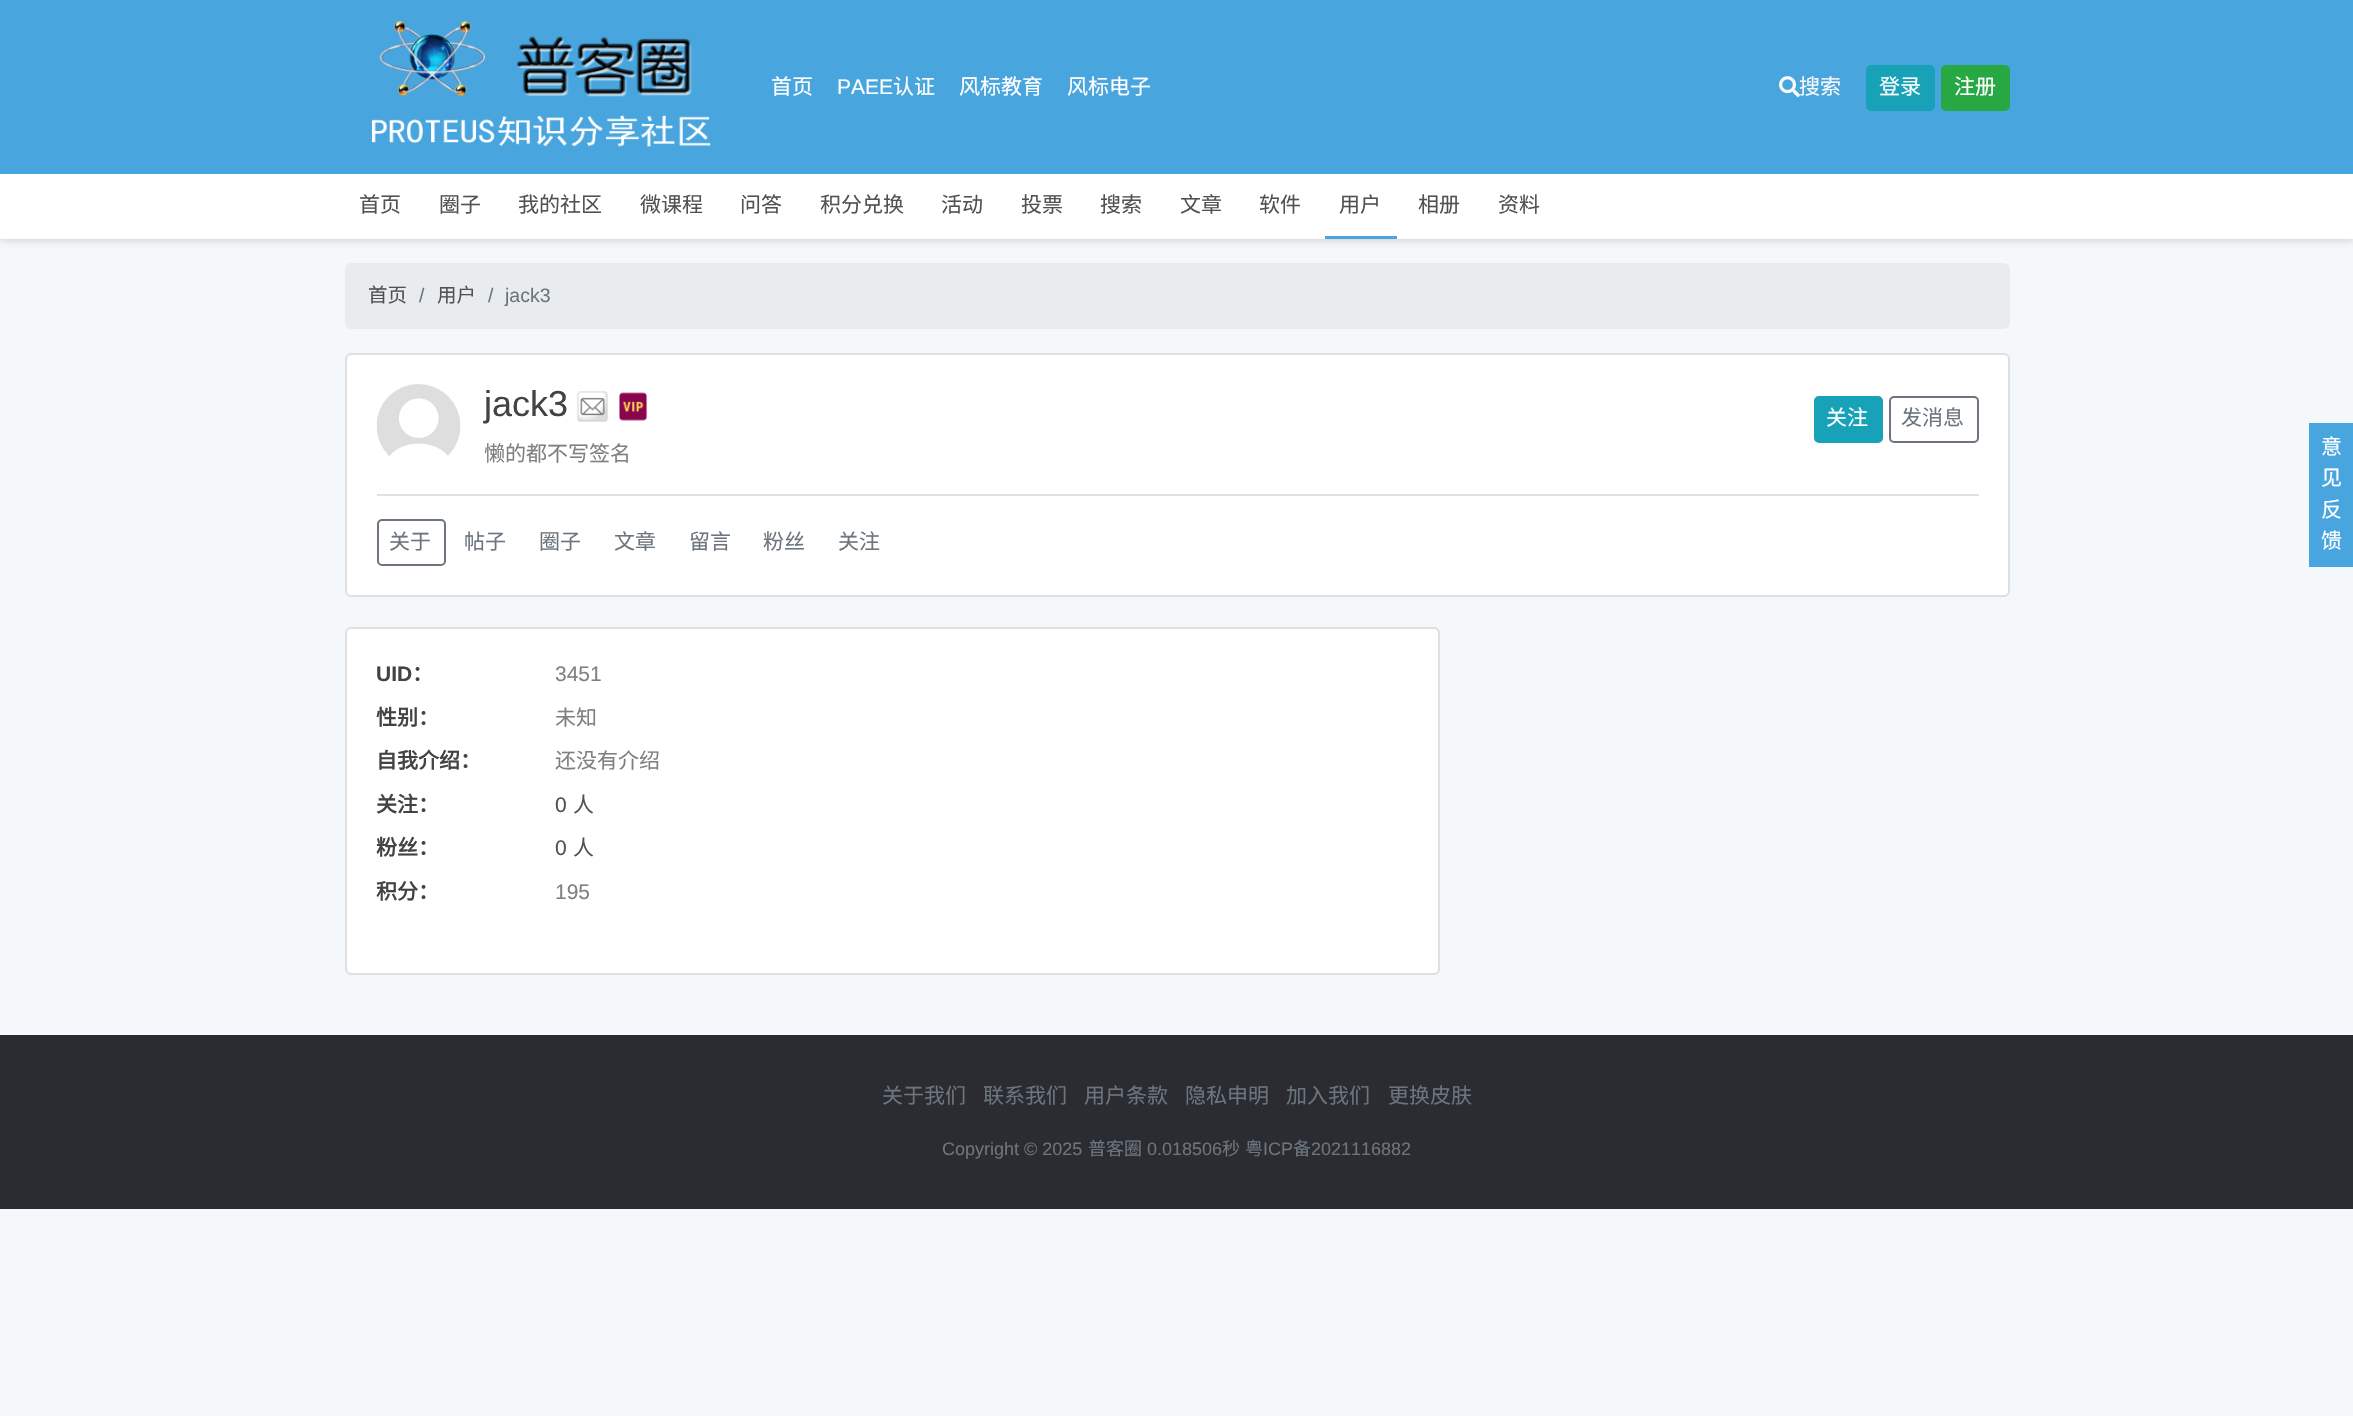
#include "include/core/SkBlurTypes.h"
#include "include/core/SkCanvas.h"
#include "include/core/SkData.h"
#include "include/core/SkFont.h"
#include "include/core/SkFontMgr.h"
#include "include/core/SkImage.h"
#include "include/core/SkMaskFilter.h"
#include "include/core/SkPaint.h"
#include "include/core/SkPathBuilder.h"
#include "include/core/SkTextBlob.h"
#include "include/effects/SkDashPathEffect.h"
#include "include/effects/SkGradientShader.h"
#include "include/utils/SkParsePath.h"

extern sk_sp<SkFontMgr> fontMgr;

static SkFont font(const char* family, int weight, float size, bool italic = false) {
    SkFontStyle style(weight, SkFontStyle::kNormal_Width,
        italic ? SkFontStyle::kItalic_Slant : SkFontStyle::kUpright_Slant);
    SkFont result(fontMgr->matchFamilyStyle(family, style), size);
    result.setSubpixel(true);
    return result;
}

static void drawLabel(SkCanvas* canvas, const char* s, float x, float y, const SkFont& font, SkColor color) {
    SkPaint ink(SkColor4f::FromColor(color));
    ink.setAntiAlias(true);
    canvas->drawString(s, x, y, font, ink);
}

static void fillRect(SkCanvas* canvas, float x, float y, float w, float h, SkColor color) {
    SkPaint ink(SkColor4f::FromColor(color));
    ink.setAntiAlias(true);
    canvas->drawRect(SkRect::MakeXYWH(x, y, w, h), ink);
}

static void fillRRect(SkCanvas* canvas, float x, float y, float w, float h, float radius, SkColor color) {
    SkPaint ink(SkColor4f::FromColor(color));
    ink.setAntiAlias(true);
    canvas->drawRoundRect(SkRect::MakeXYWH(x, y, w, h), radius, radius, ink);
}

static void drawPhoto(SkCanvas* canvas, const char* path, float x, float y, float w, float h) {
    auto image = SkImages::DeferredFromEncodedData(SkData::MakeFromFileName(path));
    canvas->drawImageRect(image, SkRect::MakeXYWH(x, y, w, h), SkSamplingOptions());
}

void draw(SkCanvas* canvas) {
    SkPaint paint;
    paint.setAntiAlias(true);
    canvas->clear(0xFFF5F8FA);
    paint.setColor(0xFFCCCCCC);
    paint.setMaskFilter(SkMaskFilter::MakeBlur(kNormal_SkBlurStyle, 4));
    canvas->drawRect(SkRect::MakeXYWH(0, 176, 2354, 64), paint);
    paint.setMaskFilter(nullptr);
    fillRect(canvas, 0, 0, 2353, 174, 0xFF49A5DE);
    drawPhoto(canvas, "assets/img1.png", 372, 20, 339, 127);
    SkFont font1 = font("Noto Sans CJK SC", 400, 21);
    drawLabel(canvas, "首页", 771, 94, font1, 0xFFFFFFFF);
    SkFont font2 = font("Liberation Sans", 400, 21);
    drawLabel(canvas, "PAEE", 837, 94, font2, 0xFFFFFFFF);
    drawLabel(canvas, "认证", 893, 94, font1, 0xFFFFFFFF);
    drawLabel(canvas, "风标教育", 959, 94, font1, 0xFFFFFFFF);
    drawLabel(canvas, "风标电子", 1067, 94, font1, 0xFFFFFFFF);
    drawPhoto(canvas, "assets/img2.png", 1779, 76, 21, 22);
    drawLabel(canvas, "搜索", 1799, 94, font1, 0xFFF8F9FA);
    paint.setColor(0xFF17A2B8);
    canvas->drawRoundRect(SkRect::MakeXYWH(1867, 66, 67, 44), 4, 4, paint);
    paint.setStroke(true);
    paint.setStrokeWidth(2);
    canvas->drawRoundRect(SkRect::MakeXYWH(1867, 66, 67, 44), 4, 4, paint);
    drawLabel(canvas, "登录", 1879, 94, font1, 0xFFFFFFFF);
    paint.setStroke(false);
    paint.setColor(0xFF28A745);
    canvas->drawRoundRect(SkRect::MakeXYWH(1942, 66, 67, 44), 4, 4, paint);
    paint.setStroke(true);
    canvas->drawRoundRect(SkRect::MakeXYWH(1942, 66, 67, 44), 4, 4, paint);
    drawLabel(canvas, "注册", 1954, 94, font1, 0xFFFFFFFF);
    fillRect(canvas, 0, 174, 2353, 65, 0xFFFFFFFF);
    drawLabel(canvas, "首页", 359, 212, font1, 0xFF515151);
    drawLabel(canvas, "圈子", 439, 212, font1, 0xFF515151);
    drawLabel(canvas, "我的社区", 518, 212, font1, 0xFF515151);
    drawLabel(canvas, "微课程", 640, 212, font1, 0xFF515151);
    drawLabel(canvas, "问答", 740, 212, font1, 0xFF515151);
    drawLabel(canvas, "积分兑换", 820, 212, font1, 0xFF515151);
    drawLabel(canvas, "活动", 941, 212, font1, 0xFF515151);
    drawLabel(canvas, "投票", 1021, 212, font1, 0xFF515151);
    drawLabel(canvas, "搜索", 1100, 212, font1, 0xFF515151);
    drawLabel(canvas, "文章", 1180, 212, font1, 0xFF515151);
    drawLabel(canvas, "软件", 1259, 212, font1, 0xFF515151);
    fillRect(canvas, 1325, 236, 72, 3, 0xFF49A5DE);
    drawLabel(canvas, "用户", 1339, 212, font1, 0xFF515151);
    drawLabel(canvas, "相册", 1418, 212, font1, 0xFF515151);
    drawLabel(canvas, "资料", 1498, 212, font1, 0xFF515151);
    fillRRect(canvas, 345, 263, 1665, 66, 6, 0xFFE9ECEF);
    SkFont font3 = font("Noto Sans CJK SC", 400, 19.5f);
    drawLabel(canvas, "首页", 368, 302, font3, 0xFF515151);
    SkFont font4 = font("Liberation Sans", 400, 19.5f);
    drawLabel(canvas, "/", 419, 302, font4, 0xFF6C757D);
    drawLabel(canvas, "用户", 437, 302, font3, 0xFF515151);
    drawLabel(canvas, "/", 488, 302, font4, 0xFF6C757D);
    drawLabel(canvas, "jack3", 505, 302, font4, 0xFF6C757D);
    paint.setStroke(false);
    paint.setColor(0xFFFFFFFF);
    canvas->drawRoundRect(SkRect::MakeXYWH(346, 354, 1663, 242), 5, 5, paint);
    paint.setStroke(true);
    paint.setColor(0xFFDFDFDF);
    canvas->drawRoundRect(SkRect::MakeXYWH(346, 354, 1663, 242), 5, 5, paint);
    drawPhoto(canvas, "assets/img3.png", 376, 384, 85, 72);
    SkFont font5 = font("Liberation Sans", 400, 36);
    drawLabel(canvas, "jack3", 484, 416, font5, 0xFF434343);
    drawPhoto(canvas, "assets/img4.png", 577, 391, 31, 31);
    drawPhoto(canvas, "assets/img5.png", 619, 392, 29, 29);
    drawLabel(canvas, "懒的都不写签名", 484, 461, font1, 0xFF808080);
    paint.setStroke(false);
    paint.setColor(0xFF17A2B8);
    canvas->drawRoundRect(SkRect::MakeXYWH(1815, 397, 67, 45), 4, 4, paint);
    paint.setStroke(true);
    canvas->drawRoundRect(SkRect::MakeXYWH(1815, 397, 67, 45), 4, 4, paint);
    drawLabel(canvas, "关注", 1826, 425, font1, 0xFFFFFFFF);
    paint.setColor(0xFF6C757D);
    canvas->drawRoundRect(SkRect::MakeXYWH(1890, 397, 88, 45), 4, 4, paint);
    drawLabel(canvas, "发消息", 1901, 425, font1, 0xFF6C757D);
    fillRect(canvas, 377, 494, 1602, 2, 0xFFDEE2E6);
    canvas->drawRoundRect(SkRect::MakeXYWH(378, 520, 67, 45), 4, 4, paint);
    drawLabel(canvas, "关于", 389, 549, font1, 0xFF6C757D);
    drawLabel(canvas, "帖子", 464, 549, font1, 0xFF6C757D);
    drawLabel(canvas, "圈子", 539, 549, font1, 0xFF6C757D);
    drawLabel(canvas, "文章", 614, 549, font1, 0xFF6C757D);
    drawLabel(canvas, "留言", 689, 549, font1, 0xFF6C757D);
    drawLabel(canvas, "粉丝", 763, 549, font1, 0xFF6C757D);
    drawLabel(canvas, "关注", 838, 549, font1, 0xFF6C757D);
    paint.setStroke(false);
    paint.setColor(0xFFFFFFFF);
    canvas->drawRoundRect(SkRect::MakeXYWH(346, 628, 1093, 346), 5, 5, paint);
    paint.setStroke(true);
    paint.setColor(0xFFDFDFDF);
    canvas->drawRoundRect(SkRect::MakeXYWH(346, 628, 1093, 346), 5, 5, paint);
    SkFont font6 = font("Liberation Sans", 700, 21);
    drawLabel(canvas, "UID", 376, 681, font6, 0xFF434343);
    SkFont font7 = font("Noto Sans CJK SC", 700, 21);
    drawLabel(canvas, "：", 412, 681, font7, 0xFF434343);
    drawLabel(canvas, "3451", 555, 681, font2, 0xFF808080);
    drawLabel(canvas, "性别：", 376, 725, font7, 0xFF434343);
    drawLabel(canvas, "未知", 555, 725, font1, 0xFF808080);
    drawLabel(canvas, "自我介绍：", 376, 768, font7, 0xFF434343);
    drawLabel(canvas, "还没有介绍", 555, 768, font1, 0xFF808080);
    drawLabel(canvas, "关注：", 376, 812, font7, 0xFF434343);
    drawLabel(canvas, "0", 555, 812, font2, 0xFF515151);
    drawLabel(canvas, "人", 573, 812, font1, 0xFF515151);
    drawLabel(canvas, "粉丝：", 376, 855, font7, 0xFF434343);
    drawLabel(canvas, "0", 555, 855, font2, 0xFF515151);
    drawLabel(canvas, "人", 573, 855, font1, 0xFF515151);
    drawLabel(canvas, "积分：", 376, 899, font7, 0xFF434343);
    drawLabel(canvas, "195", 555, 899, font2, 0xFF808080);
    fillRect(canvas, 2309, 423, 44, 144, 0xFF49A5DE);
    drawLabel(canvas, "意", 2321, 454, font1, 0xFFFFFFFF);
    drawLabel(canvas, "见", 2321, 485, font1, 0xFFFFFFFF);
    drawLabel(canvas, "反", 2321, 517, font1, 0xFFFFFFFF);
    drawLabel(canvas, "馈", 2321, 548, font1, 0xFFFFFFFF);
    fillRect(canvas, 0, 1035, 2353, 174, 0xFF2A2C31);
    drawLabel(canvas, "关于我们", 882, 1103, font1, 0xFF6C757D);
    drawLabel(canvas, "联系我们", 983, 1103, font1, 0xFF6C757D);
    drawLabel(canvas, "用户条款", 1084, 1103, font1, 0xFF6C757D);
    drawLabel(canvas, "隐私申明", 1185, 1103, font1, 0xFF6C757D);
    drawLabel(canvas, "加入我们", 1286, 1103, font1, 0xFF6C757D);
    drawLabel(canvas, "更换皮肤", 1388, 1103, font1, 0xFF6C757D);
    SkFont font8 = font("Liberation Sans", 400, 18);
    drawLabel(canvas, "Copyright © 2025", 942, 1155, font8, 0xFF6C757D);
    SkFont font9 = font("Noto Sans CJK SC", 400, 18);
    drawLabel(canvas, "普客圈", 1088, 1155, font9, 0xFF6C757D);
    drawLabel(canvas, "0.018506", 1147, 1155, font8, 0xFF6C757D);
    drawLabel(canvas, "秒", 1222, 1155, font9, 0xFF6C757D);
    drawLabel(canvas, "粤", 1245, 1155, font9, 0xFF6C757D);
    drawLabel(canvas, "ICP", 1263, 1155, font8, 0xFF6C757D);
    drawLabel(canvas, "备", 1293, 1155, font9, 0xFF6C757D);
    drawLabel(canvas, "2021116882", 1311, 1155, font8, 0xFF6C757D);
}
